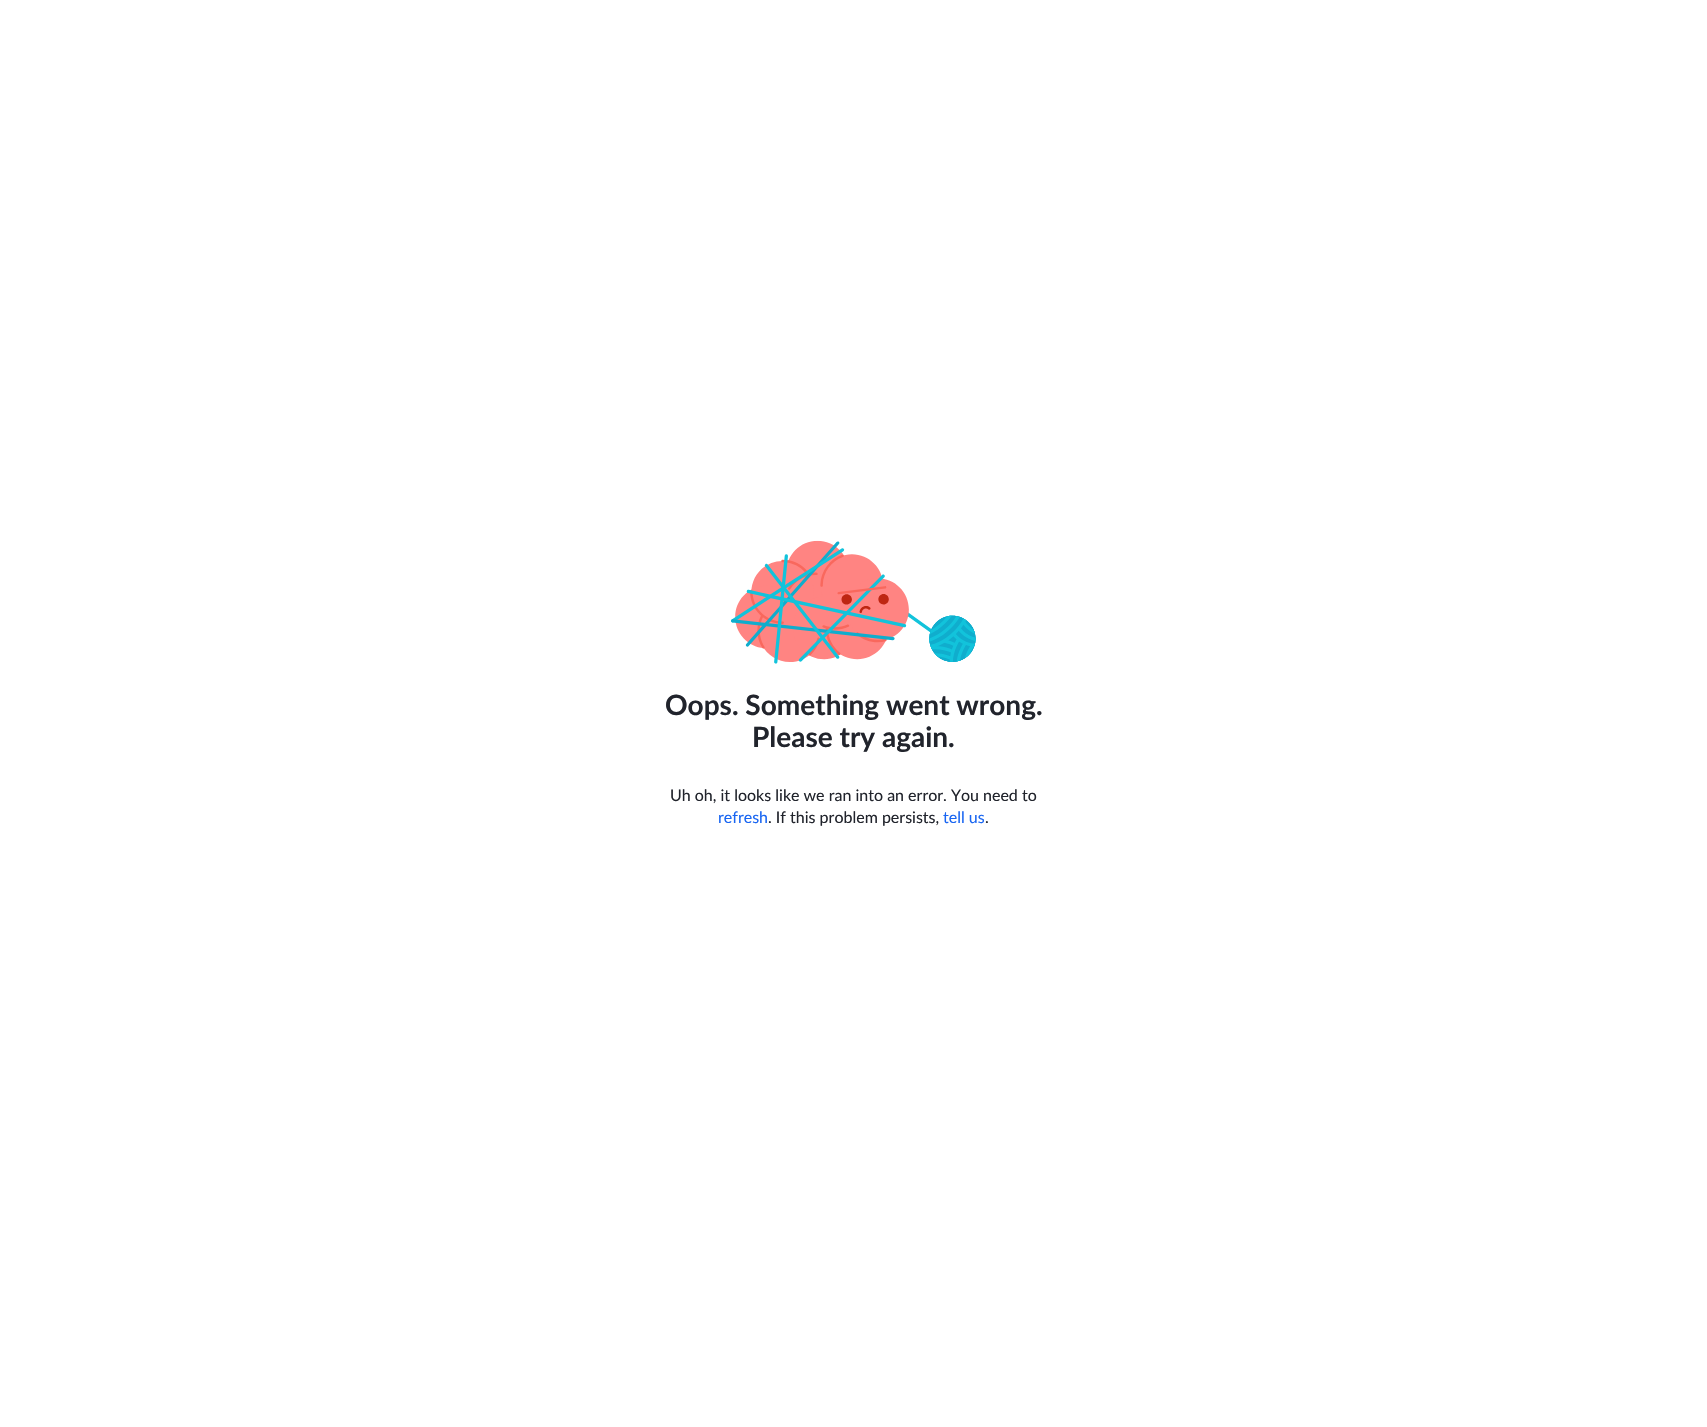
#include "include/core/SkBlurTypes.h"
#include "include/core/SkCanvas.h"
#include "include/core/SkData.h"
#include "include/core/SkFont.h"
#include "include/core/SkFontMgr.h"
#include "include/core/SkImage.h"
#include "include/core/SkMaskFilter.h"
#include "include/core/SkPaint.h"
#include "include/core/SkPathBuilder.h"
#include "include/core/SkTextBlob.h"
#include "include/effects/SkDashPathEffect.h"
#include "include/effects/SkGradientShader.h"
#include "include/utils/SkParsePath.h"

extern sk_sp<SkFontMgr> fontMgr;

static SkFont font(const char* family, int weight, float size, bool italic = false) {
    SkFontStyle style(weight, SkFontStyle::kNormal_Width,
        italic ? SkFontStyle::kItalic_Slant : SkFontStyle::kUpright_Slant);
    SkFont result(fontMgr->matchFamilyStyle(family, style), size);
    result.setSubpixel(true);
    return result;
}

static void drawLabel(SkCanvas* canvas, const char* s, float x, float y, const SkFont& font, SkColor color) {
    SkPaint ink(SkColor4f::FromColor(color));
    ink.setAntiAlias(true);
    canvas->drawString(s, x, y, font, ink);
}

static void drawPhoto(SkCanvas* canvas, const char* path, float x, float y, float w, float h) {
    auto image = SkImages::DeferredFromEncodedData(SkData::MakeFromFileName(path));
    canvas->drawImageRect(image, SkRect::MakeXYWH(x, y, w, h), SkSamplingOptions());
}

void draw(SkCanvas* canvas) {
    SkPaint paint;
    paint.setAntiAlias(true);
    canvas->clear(0xFFFFFFFF);
    drawPhoto(canvas, "assets/img1.png", 731, 540, 245, 124);
    SkFont font1 = font("Lato", 700, 28);
    drawLabel(canvas, "Oops. Something went wrong.", 665, 715, font1, 0xFF21242C);
    drawLabel(canvas, "Please try again.", 752, 747, font1, 0xFF21242C);
    SkFont font2 = font("Lato", 400, 16);
    drawLabel(canvas, "Uh oh, it looks like we ran into an error. You need to", 670, 801, font2, 0xFF21242C);
    drawLabel(canvas, "refresh", 718, 823, font2, 0xFF1865F2);
    drawLabel(canvas, ". If this problem persists,", 768, 823, font2, 0xFF21242C);
    drawLabel(canvas, "tell us", 943, 823, font2, 0xFF1865F2);
    drawLabel(canvas, ".", 985, 823, font2, 0xFF21242C);
}
